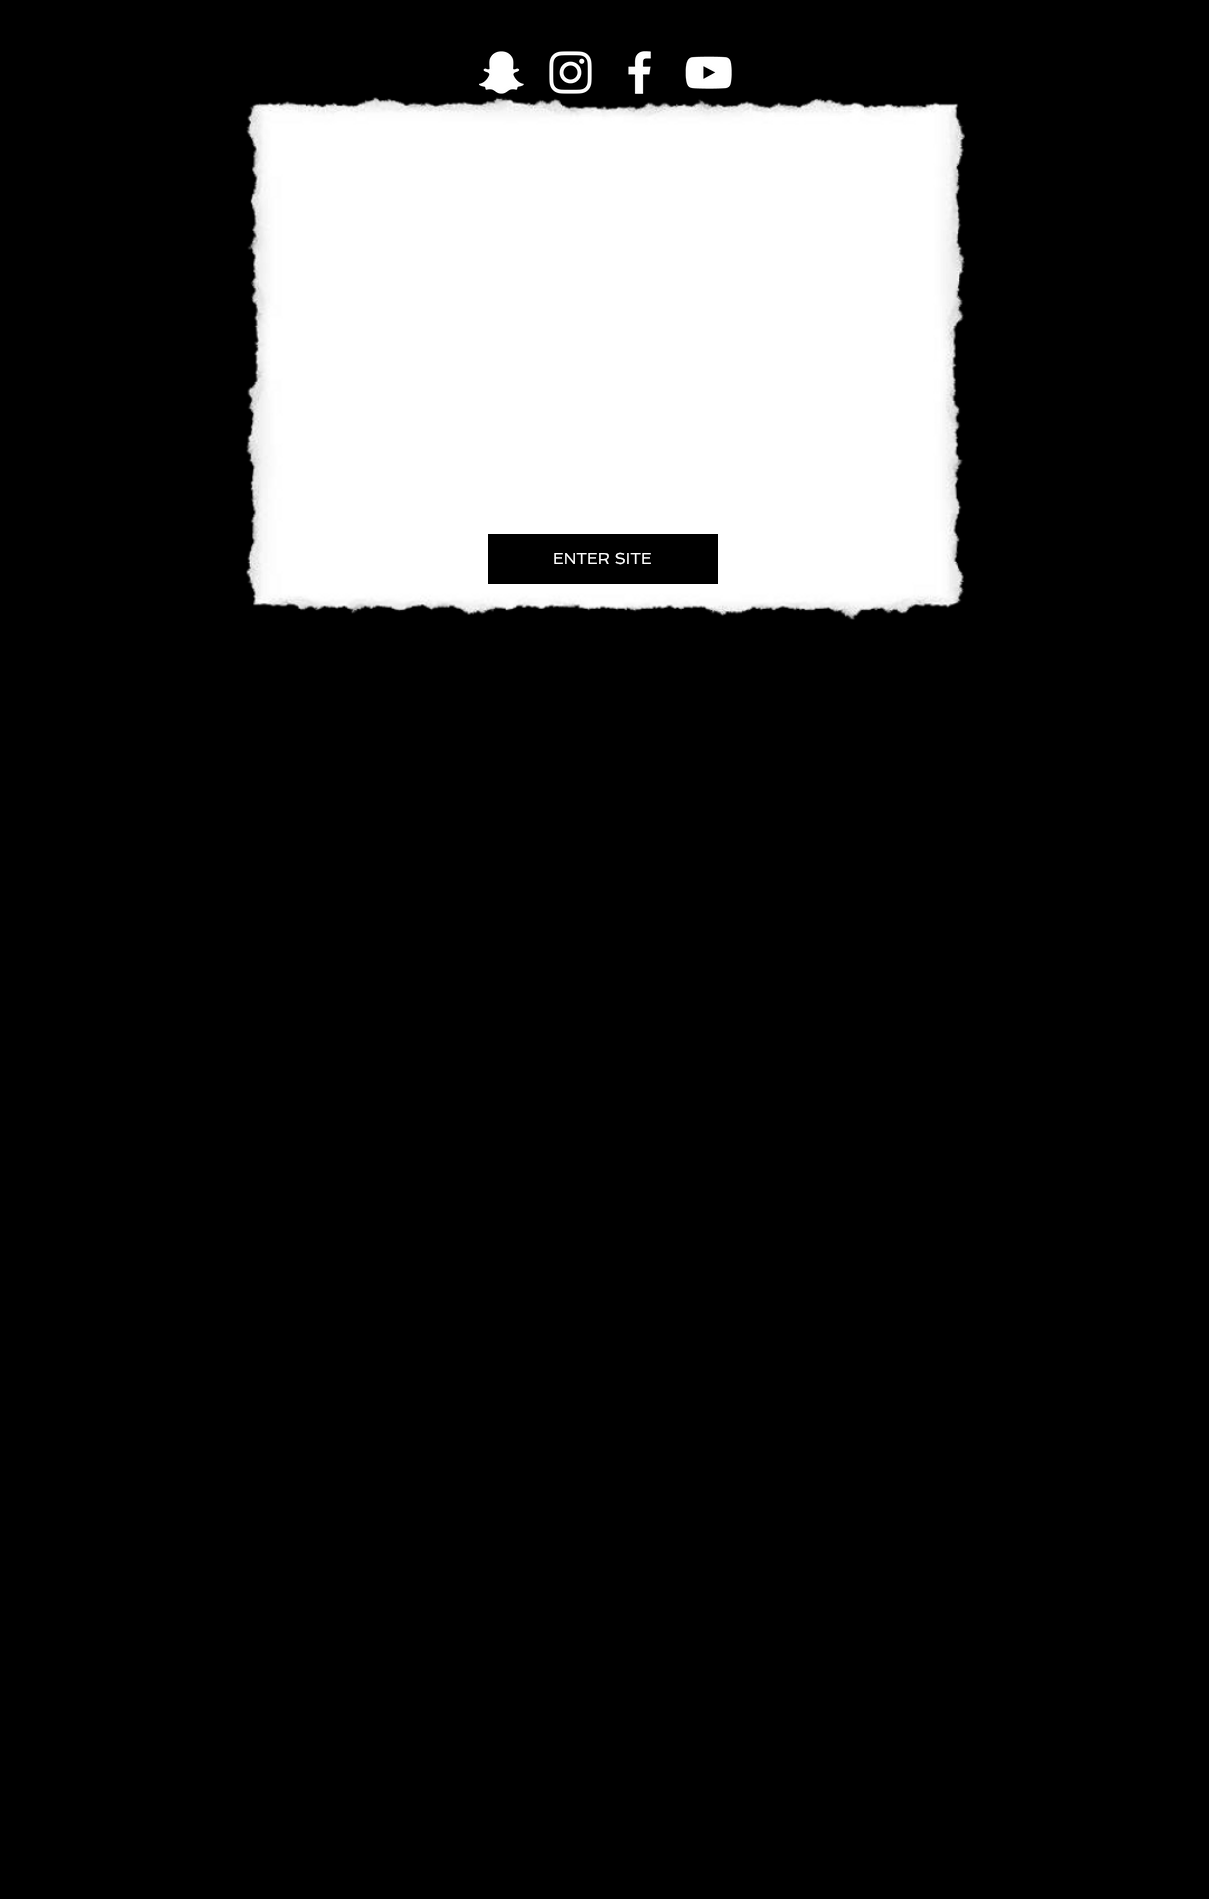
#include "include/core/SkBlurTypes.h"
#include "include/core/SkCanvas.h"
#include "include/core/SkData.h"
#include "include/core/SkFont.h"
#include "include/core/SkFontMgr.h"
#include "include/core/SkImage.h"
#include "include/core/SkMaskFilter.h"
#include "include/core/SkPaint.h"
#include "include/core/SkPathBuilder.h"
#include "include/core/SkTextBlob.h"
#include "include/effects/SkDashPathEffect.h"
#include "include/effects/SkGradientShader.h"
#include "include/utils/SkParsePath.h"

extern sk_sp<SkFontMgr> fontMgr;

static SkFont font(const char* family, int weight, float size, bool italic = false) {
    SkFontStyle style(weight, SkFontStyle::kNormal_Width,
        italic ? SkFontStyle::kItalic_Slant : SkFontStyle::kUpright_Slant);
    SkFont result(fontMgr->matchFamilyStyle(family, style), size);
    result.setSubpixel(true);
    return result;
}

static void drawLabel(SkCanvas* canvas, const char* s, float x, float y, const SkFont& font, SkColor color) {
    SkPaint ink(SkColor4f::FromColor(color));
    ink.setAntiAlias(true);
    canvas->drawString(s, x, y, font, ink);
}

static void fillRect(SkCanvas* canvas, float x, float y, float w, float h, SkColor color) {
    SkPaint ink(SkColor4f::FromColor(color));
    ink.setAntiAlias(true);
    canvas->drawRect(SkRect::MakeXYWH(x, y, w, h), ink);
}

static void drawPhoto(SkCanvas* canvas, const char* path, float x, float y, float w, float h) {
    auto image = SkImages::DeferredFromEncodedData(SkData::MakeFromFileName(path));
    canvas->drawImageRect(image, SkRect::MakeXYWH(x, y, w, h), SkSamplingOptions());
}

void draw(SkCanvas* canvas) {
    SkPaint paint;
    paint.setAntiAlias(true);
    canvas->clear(0xFF000000);
    drawPhoto(canvas, "assets/img1.png", 479, 51, 45, 43);
    drawPhoto(canvas, "assets/img2.png", 549, 51, 43, 43);
    drawPhoto(canvas, "assets/img3.png", 628, 51, 23, 43);
    drawPhoto(canvas, "assets/img4.png", 685, 56, 47, 33);
    drawPhoto(canvas, "assets/img5.png", 246, 97, 719, 523);
    fillRect(canvas, 488, 534, 230, 50, 0xFF000000);
    SkFont font1 = font("Spinnaker", 400, 16);
    drawLabel(canvas, "ENTER SITE", 553, 564, font1, 0xFFFFFFFF);
}
